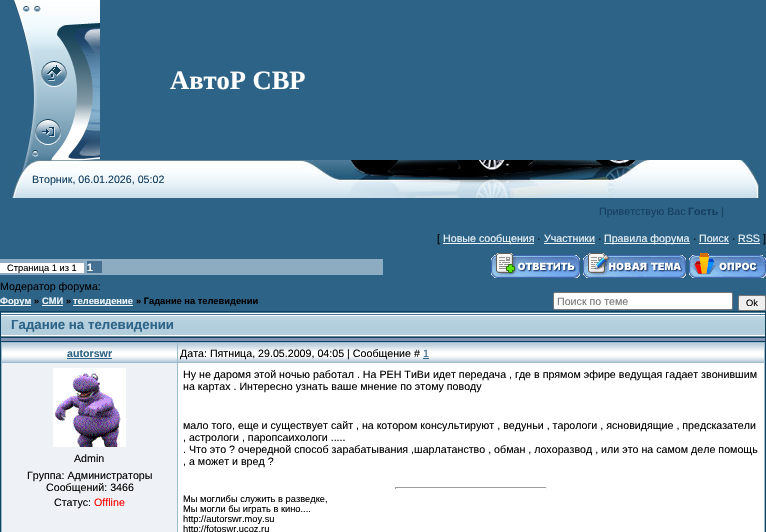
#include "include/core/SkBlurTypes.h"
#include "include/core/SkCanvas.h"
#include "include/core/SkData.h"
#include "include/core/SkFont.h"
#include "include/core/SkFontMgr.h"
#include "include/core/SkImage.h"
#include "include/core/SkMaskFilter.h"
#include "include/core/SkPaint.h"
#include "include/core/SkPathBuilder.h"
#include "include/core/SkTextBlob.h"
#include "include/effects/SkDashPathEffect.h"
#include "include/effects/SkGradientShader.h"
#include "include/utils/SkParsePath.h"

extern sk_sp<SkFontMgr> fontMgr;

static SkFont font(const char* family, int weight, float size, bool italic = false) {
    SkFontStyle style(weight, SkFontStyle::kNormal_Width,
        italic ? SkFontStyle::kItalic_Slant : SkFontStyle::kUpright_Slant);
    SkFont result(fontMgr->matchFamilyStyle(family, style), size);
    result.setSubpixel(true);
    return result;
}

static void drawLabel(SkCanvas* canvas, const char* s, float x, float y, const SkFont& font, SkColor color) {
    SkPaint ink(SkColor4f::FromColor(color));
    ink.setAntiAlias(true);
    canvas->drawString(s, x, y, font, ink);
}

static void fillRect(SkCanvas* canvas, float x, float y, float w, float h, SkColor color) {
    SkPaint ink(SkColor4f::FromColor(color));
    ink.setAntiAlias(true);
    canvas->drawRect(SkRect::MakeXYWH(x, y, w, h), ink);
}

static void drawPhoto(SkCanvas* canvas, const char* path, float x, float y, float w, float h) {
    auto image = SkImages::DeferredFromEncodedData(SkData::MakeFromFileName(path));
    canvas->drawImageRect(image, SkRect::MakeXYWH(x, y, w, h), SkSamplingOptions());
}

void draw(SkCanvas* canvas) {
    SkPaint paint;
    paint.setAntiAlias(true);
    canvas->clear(0xFF2D6386);
    drawPhoto(canvas, "assets/img1.png", 7, 0, 93, 160);
    drawPhoto(canvas, "assets/img2.png", 41, 61, 26, 26);
    drawPhoto(canvas, "assets/img3.png", 35, 119, 26, 26);
    SkFont font1 = font("Liberation Serif", 700, 26.5f);
    drawLabel(canvas, "АвтоР СВР", 170, 89, font1, 0xFFFFFFFF);
    drawPhoto(canvas, "assets/img4.png", 7, 160, 752, 38);
    SkFont font2 = font("Liberation Sans", 400, 10.67f);
    drawLabel(canvas, "Вторник, 06.01.2026, 05:02", 32, 183, font2, 0xFF143E61);
    drawLabel(canvas, "Приветствую Вас", 599, 215, font2, 0xFF143E61);
    SkFont font3 = font("Liberation Sans", 700, 10.67f);
    drawLabel(canvas, "Гость", 688, 215, font3, 0xFF143E61);
    drawLabel(canvas, "|", 721, 215, font2, 0xFF143E61);
    drawLabel(canvas, "[", 437, 242, font2, 0xFF000000);
    fillRect(canvas, 443, 243, 91, 1, 0xFFEBF4F9);
    drawLabel(canvas, "Новые сообщения", 443, 242, font2, 0xFFEBF4F9);
    drawLabel(canvas, "·", 537, 242, font2, 0xFF000000);
    drawLabel(canvas, "Участники", 544, 242, font2, 0xFFEBF4F9);
    fillRect(canvas, 544, 243, 51, 1, 0xFFEBF4F9);
    drawLabel(canvas, "·", 598, 242, font2, 0xFF000000);
    fillRect(canvas, 604, 243, 86, 1, 0xFFEBF4F9);
    drawLabel(canvas, "Правила форума", 604, 242, font2, 0xFFEBF4F9);
    drawLabel(canvas, "·", 693, 242, font2, 0xFF000000);
    drawLabel(canvas, "Поиск", 699, 242, font2, 0xFFEBF4F9);
    fillRect(canvas, 699, 243, 30, 1, 0xFFEBF4F9);
    drawLabel(canvas, "·", 732, 242, font2, 0xFF000000);
    drawLabel(canvas, "RSS", 738, 242, font2, 0xFFEBF4F9);
    fillRect(canvas, 738, 243, 22, 1, 0xFFEBF4F9);
    drawLabel(canvas, "]", 763, 242, font2, 0xFF000000);
    fillRect(canvas, 0, 259, 383, 16, 0xFF8DACC2);
    fillRect(canvas, 0, 263, 84, 10, 0xFFFFFFFF);
    SkFont font4 = font("Liberation Sans", 400, 9.3f);
    drawLabel(canvas, "Страница 1 из 1", 7, 271, font4, 0xFF000000);
    fillRect(canvas, 87, 261, 15, 12, 0xFF446F91);
    drawLabel(canvas, "1", 87, 271, font3, 0xFFFFFFFF);
    drawPhoto(canvas, "assets/img5.png", 491, 253, 89, 25);
    drawPhoto(canvas, "assets/img6.png", 583, 253, 103, 25);
    drawPhoto(canvas, "assets/img7.png", 689, 253, 77, 25);
    drawLabel(canvas, "Модератор форума:", 0, 290, font2, 0xFF000000);
    fillRect(canvas, 0, 305, 31, 1, 0xFFEBF4F9);
    SkFont font5 = font("Liberation Sans", 700, 9.3f);
    drawLabel(canvas, "Форум", 0, 304, font5, 0xFFEBF4F9);
    drawLabel(canvas, "»", 34, 304, font5, 0xFF000000);
    drawLabel(canvas, "СМИ", 42, 304, font5, 0xFFEBF4F9);
    fillRect(canvas, 42, 305, 21, 1, 0xFFEBF4F9);
    drawLabel(canvas, "»", 66, 304, font5, 0xFF000000);
    fillRect(canvas, 73, 305, 60, 1, 0xFFEBF4F9);
    drawLabel(canvas, "телевидение", 73, 304, font5, 0xFFEBF4F9);
    drawLabel(canvas, "» Гадание на телевидении", 136, 304, font5, 0xFF000000);
    paint.setColor(0xFFFFFFFF);
    canvas->drawRoundRect(SkRect::MakeXYWH(553.5f, 292.5f, 179, 17), 1.5f, 1.5f, paint);
    paint.setStroke(true);
    paint.setStrokeWidth(1);
    paint.setColor(0xFF767676);
    canvas->drawRoundRect(SkRect::MakeXYWH(553.5f, 292.5f, 179, 17), 1.5f, 1.5f, paint);
    drawLabel(canvas, "Поиск по теме", 557, 305, font2, 0xFF757575);
    paint.setStroke(false);
    paint.setColor(0xFFEFEFEF);
    canvas->drawRoundRect(SkRect::MakeXYWH(738.5f, 295.5f, 27, 15), 1.5f, 1.5f, paint);
    paint.setStroke(true);
    paint.setColor(0xFF767676);
    canvas->drawRoundRect(SkRect::MakeXYWH(738.5f, 295.5f, 27, 15), 1.5f, 1.5f, paint);
    drawLabel(canvas, "Ok", 746, 306, font4, 0xFF000000);
    fillRect(canvas, 0, 311, 766, 221, 0xFF0C4162);
    drawPhoto(canvas, "assets/img8.png", 1, 312, 764, 25);
    SkFont font6 = font("Liberation Sans", 700, 13.25f);
    drawLabel(canvas, "Гадание на телевидении", 11, 329, font6, 0xFF2D6386);
    fillRect(canvas, 1, 338, 764, 3, 0xFF8394B2);
    fillRect(canvas, 1, 342, 764, 190, 0xFF9DBBCF);
    drawPhoto(canvas, "assets/img9.png", 2, 343, 175, 19);
    drawLabel(canvas, "autorswr", 67, 357, font3, 0xFF2D6386);
    fillRect(canvas, 67, 358, 45, 1, 0xFF2D6386);
    drawPhoto(canvas, "assets/img10.png", 178, 343, 586, 19);
    drawLabel(canvas, "Дата: Пятница, 29.05.2009, 04:05 | Сообщение #", 180, 357, font2, 0xFF000000);
    drawLabel(canvas, "1", 423, 357, font2, 0xFF2D6386);
    fillRect(canvas, 423, 358, 6, 1, 0xFF2D6386);
    fillRect(canvas, 2, 363, 175, 169, 0xFFEEF2F7);
    drawPhoto(canvas, "assets/img11.png", 53, 368, 73, 79);
    drawLabel(canvas, "Admin", 74, 462, font2, 0xFF000000);
    drawLabel(canvas, "Группа: Администраторы", 27, 479, font2, 0xFF000000);
    drawLabel(canvas, "Сообщений: 3466", 46, 491, font2, 0xFF000000);
    drawLabel(canvas, "Статус:", 54, 506, font2, 0xFF000000);
    drawLabel(canvas, "Offline", 94, 506, font2, 0xFFFF0000);
    fillRect(canvas, 178, 363, 586, 169, 0xFFFFFFFF);
    drawLabel(canvas, "Ну не даромя этой ночью работал . На РЕН ТиВи идет передача , где в прямом эфире ведущая гадает звонившим", 183, 378, font2, 0xFF000000);
    drawLabel(canvas, "на картах . Интересно узнать ваше мнение по этому поводу", 183, 390, font2, 0xFF000000);
    drawLabel(canvas, "мало того, еще и существует сайт , на котором консультируют , ведуньи , тарологи , ясновидящие , предсказатели", 183, 429, font2, 0xFF000000);
    drawLabel(canvas, ", астрологи , паропсаихологи .....", 183, 441, font2, 0xFF000000);
    drawLabel(canvas, ". Что это ? очередной способ зарабатывания ,шарлатанство , обман , лохоразвод , или это на самом деле помощь", 183, 453, font2, 0xFF000000);
    drawLabel(canvas, ", а может и вред ?", 183, 465, font2, 0xFF000000);
    fillRect(canvas, 395, 487, 152, 1, 0xFF9F9F9F);
    fillRect(canvas, 546, 487, 1, 2, 0xFFEEEEEE);
    fillRect(canvas, 395, 487, 1, 2, 0xFF9F9F9F);
    drawLabel(canvas, "Мы моглибы служить в разведке,", 183, 502, font4, 0xFF000000);
    drawLabel(canvas, "Мы могли бы играть в кино....", 183, 512, font4, 0xFF000000);
    drawLabel(canvas, "http://autorswr.moy.su", 183, 522, font4, 0xFF000000);
    drawLabel(canvas, "http://fotoswr.ucoz.ru", 183, 532, font4, 0xFF000000);
}
